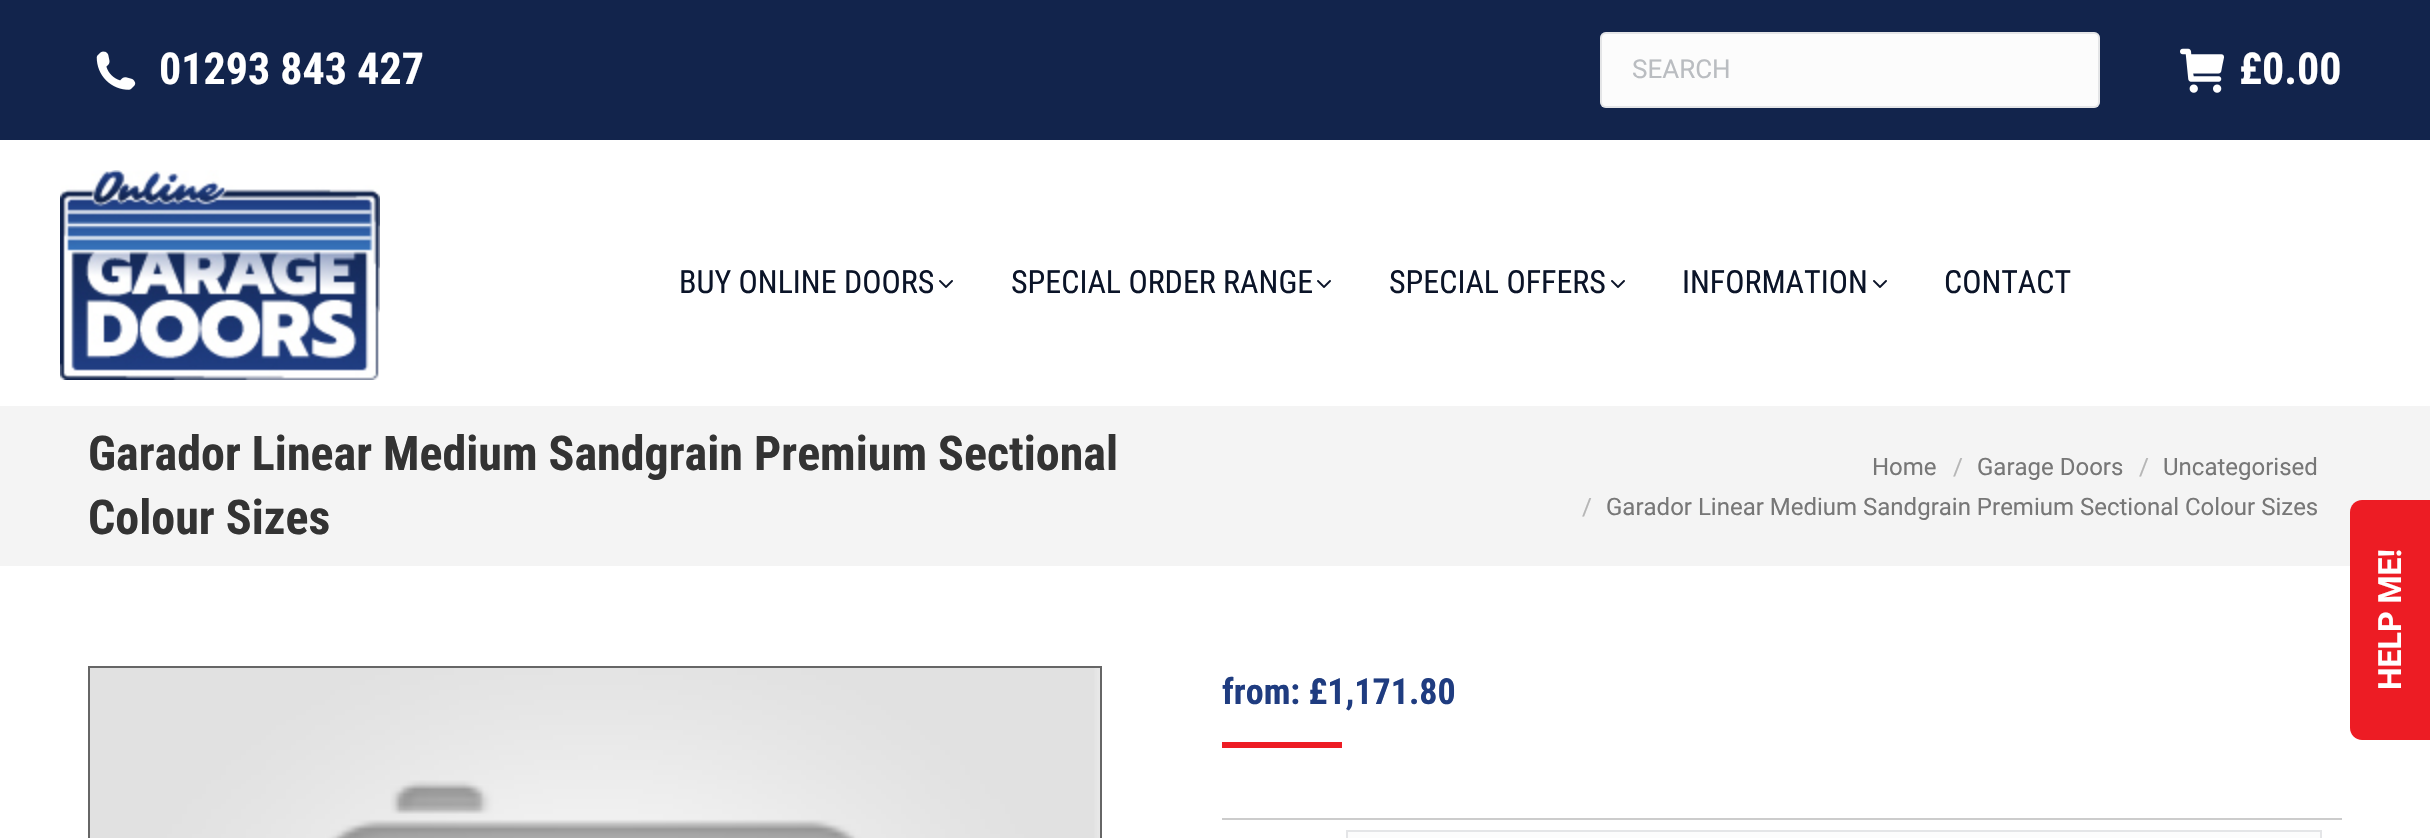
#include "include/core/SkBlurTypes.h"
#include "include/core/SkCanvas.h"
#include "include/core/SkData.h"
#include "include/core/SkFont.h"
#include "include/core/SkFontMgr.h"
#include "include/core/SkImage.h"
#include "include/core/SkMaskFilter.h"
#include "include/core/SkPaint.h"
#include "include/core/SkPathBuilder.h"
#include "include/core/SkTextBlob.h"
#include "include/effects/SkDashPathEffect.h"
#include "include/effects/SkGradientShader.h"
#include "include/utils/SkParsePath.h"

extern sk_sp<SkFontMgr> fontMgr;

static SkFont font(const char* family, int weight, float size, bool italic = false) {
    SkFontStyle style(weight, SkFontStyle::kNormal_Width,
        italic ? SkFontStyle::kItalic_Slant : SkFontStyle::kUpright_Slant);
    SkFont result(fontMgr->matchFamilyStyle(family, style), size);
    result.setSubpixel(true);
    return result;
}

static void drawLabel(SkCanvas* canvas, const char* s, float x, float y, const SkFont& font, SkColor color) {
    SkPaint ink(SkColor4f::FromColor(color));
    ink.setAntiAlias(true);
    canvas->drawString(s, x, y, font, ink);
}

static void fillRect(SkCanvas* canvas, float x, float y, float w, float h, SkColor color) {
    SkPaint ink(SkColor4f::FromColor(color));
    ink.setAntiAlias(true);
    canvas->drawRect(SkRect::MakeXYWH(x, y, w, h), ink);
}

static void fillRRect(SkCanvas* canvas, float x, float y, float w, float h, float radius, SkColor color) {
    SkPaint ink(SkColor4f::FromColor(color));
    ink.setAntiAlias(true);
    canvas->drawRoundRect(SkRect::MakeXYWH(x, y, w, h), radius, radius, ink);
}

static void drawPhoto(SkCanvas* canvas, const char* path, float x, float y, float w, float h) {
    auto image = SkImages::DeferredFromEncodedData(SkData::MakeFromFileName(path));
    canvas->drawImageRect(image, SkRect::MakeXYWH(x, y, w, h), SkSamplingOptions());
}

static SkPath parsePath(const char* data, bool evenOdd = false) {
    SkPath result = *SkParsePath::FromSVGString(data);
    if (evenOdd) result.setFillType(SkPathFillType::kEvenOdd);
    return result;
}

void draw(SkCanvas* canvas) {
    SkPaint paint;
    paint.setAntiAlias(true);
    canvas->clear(0xFFFFFFFF);
    fillRect(canvas, 0, 0, 2430, 140, 0xFF12244C);
    drawPhoto(canvas, "assets/img1.png", 96, 51, 40, 39);
    SkFont font1 = font("Roboto Condensed", 700, 44);
    drawLabel(canvas, "01293 843 427", 159, 84, font1, 0xFFFFFFFF);
    fillRRect(canvas, 1600, 32, 500, 76, 6, 0xFFFCFCFC);
    paint.setStroke(true);
    paint.setStrokeWidth(2);
    paint.setColor(0x4DADB0B6);
    canvas->drawRoundRect(SkRect::MakeXYWH(1601, 33, 498, 74), 5, 5, paint);
    SkFont font2 = font("Roboto", 400, 26);
    drawLabel(canvas, "SEARCH", 1632, 78, font2, 0xFFBABDC1);
    drawPhoto(canvas, "assets/img2.png", 2180, 48, 44, 45);
    drawLabel(canvas, "£0.00", 2239, 84, font1, 0xFFFFFFFF);
    drawPhoto(canvas, "assets/img3.png", 60, 170, 320, 210);
    SkFont font3 = font("Roboto Condensed", 400, 32);
    drawLabel(canvas, "BUY ONLINE DOORS", 679, 293, font3, 0xFF0B1428);
    drawPhoto(canvas, "assets/img4.png", 939, 280, 14, 8);
    drawLabel(canvas, "SPECIAL ORDER RANGE", 1011, 293, font3, 0xFF0B1428);
    drawPhoto(canvas, "assets/img4.png", 1317, 280, 14, 8);
    drawLabel(canvas, "SPECIAL OFFERS", 1389, 293, font3, 0xFF0B1428);
    drawPhoto(canvas, "assets/img4.png", 1611, 280, 14, 8);
    drawLabel(canvas, "INFORMATION", 1682, 293, font3, 0xFF0B1428);
    drawPhoto(canvas, "assets/img4.png", 1873, 280, 14, 8);
    drawLabel(canvas, "CONTACT", 1944, 293, font3, 0xFF0B1428);
    fillRect(canvas, 0, 406, 2430, 160, 0xFFF4F4F4);
    SkFont font4 = font("Roboto Condensed", 700, 48);
    drawLabel(canvas, "Garador Linear Medium Sandgrain Premium Sectional", 88, 470, font4, 0xFF333333);
    drawLabel(canvas, "Colour Sizes", 88, 534, font4, 0xFF333333);
    SkFont font5 = font("Roboto", 400, 24);
    drawLabel(canvas, "Home", 1872, 475, font5, 0xFF777777);
    drawLabel(canvas, "/", 1953, 475, font5, 0xFFB6B6B6);
    drawLabel(canvas, "Garage Doors", 1977, 475, font5, 0xFF777777);
    drawLabel(canvas, "/", 2139, 475, font5, 0xFFB6B6B6);
    drawLabel(canvas, "Uncategorised", 2163, 475, font5, 0xFF777777);
    drawLabel(canvas, "/", 1582, 515, font5, 0xFFB6B6B6);
    drawLabel(canvas, "Garador Linear Medium Sandgrain Premium Sectional Colour Sizes", 1606, 515, font5, 0xFF777777);
    paint.setColor(0xFF666666);
    canvas->drawRect(SkRect::MakeXYWH(89, 667, 1012, 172), paint);
    drawPhoto(canvas, "assets/img5.png", 90, 668, 1010, 170);
    SkFont font6 = font("Roboto Condensed", 700, 36);
    drawLabel(canvas, "from: £1,171.80", 1222, 704, font6, 0xFF1F3C80);
    fillRect(canvas, 1222, 742, 120, 6, 0xFFED1C24);
    fillRect(canvas, 1222, 818, 1120, 2, 0xFFCCCCCC);
    paint.setStroke(false);
    paint.setColor(0xFFFCFCFC);
    canvas->drawRect(SkRect::MakeXYWH(1347, 831, 974, 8), paint);
    paint.setStroke(true);
    paint.setColor(0xFFE4E5E7);
    canvas->drawRect(SkRect::MakeXYWH(1347, 831, 974, 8), paint);
    paint.setStroke(false);
    paint.setColor(0xFFED1C24);
    canvas->drawPath(parsePath("M2362 500H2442V740H2362C2355.5 740 2350 734.5 2350 728V512C2350 505.5 2355.5 500 2362 500Z"), paint);
    SkFont font7 = font("Roboto", 700, 32);
    canvas->save();
    canvas->rotate(-90, 2401, 690);
    drawLabel(canvas, "HELP ME!", 2401, 690, font7, 0xFFFFFFFF);
    canvas->restore();
}
